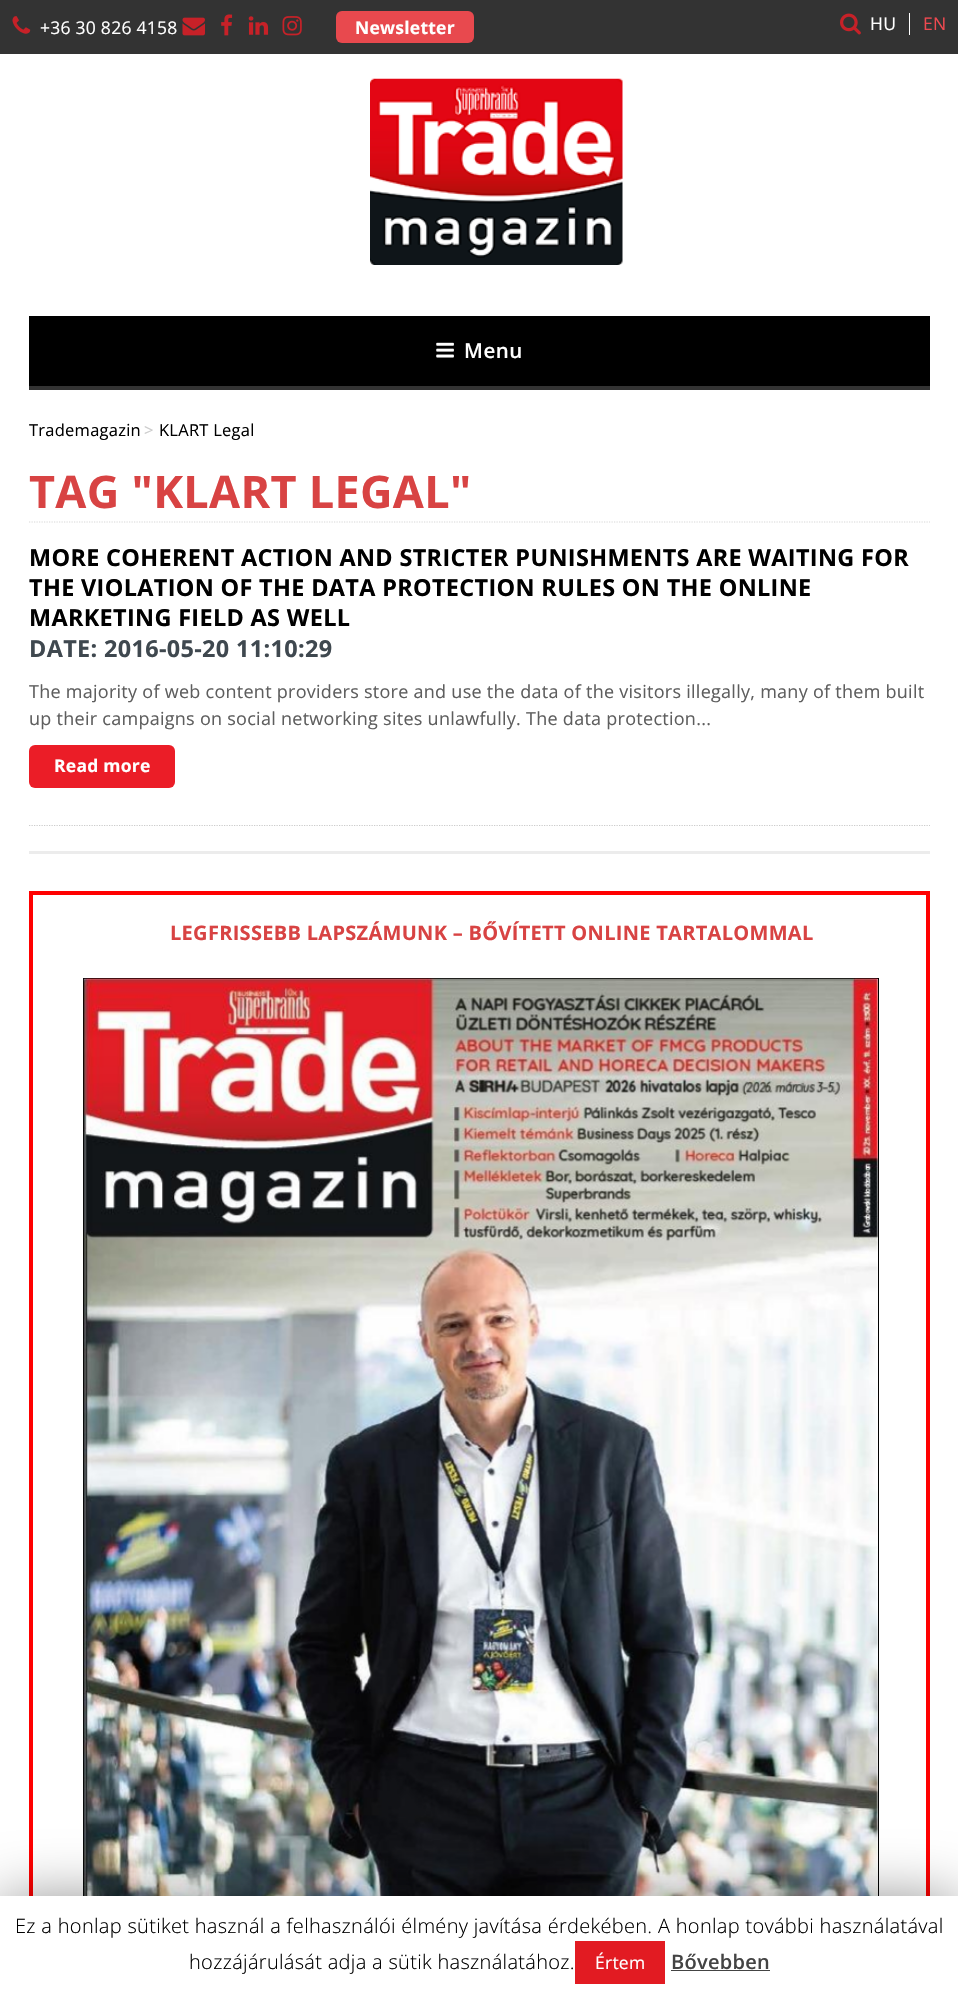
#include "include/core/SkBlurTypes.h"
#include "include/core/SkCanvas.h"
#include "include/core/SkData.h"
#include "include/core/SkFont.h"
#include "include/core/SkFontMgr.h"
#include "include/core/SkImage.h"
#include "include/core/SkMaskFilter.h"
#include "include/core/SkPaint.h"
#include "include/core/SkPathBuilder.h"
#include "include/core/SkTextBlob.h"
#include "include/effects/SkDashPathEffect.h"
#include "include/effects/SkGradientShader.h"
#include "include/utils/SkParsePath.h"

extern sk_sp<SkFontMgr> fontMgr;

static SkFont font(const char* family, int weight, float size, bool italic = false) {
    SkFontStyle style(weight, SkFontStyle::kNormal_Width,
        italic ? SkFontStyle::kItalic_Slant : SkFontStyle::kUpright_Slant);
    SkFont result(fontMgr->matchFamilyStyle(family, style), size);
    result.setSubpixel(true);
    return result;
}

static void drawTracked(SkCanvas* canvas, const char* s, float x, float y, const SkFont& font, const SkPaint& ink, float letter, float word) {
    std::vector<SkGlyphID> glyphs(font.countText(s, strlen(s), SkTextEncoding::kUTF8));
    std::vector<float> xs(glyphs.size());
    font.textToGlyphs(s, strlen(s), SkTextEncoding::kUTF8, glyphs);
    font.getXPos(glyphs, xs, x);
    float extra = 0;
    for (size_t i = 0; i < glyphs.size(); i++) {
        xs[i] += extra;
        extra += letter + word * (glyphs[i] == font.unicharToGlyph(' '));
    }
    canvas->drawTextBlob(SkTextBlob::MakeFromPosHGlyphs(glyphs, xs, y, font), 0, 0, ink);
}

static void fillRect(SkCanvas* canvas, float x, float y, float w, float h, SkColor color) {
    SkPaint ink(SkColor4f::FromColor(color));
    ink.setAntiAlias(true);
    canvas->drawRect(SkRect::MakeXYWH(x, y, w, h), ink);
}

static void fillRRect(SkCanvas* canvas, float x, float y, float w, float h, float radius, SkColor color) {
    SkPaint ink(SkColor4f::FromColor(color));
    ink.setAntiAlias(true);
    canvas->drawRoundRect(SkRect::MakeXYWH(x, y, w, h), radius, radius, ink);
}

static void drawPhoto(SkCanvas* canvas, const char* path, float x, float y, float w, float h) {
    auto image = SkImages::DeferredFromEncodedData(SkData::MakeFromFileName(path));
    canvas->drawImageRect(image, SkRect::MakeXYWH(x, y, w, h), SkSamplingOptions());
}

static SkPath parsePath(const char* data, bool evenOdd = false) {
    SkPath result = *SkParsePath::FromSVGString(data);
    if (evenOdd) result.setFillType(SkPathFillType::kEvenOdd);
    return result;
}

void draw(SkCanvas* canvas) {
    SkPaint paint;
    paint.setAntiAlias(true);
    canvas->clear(0xFFFFFFFF);
    fillRect(canvas, 0, 0, 958, 54, 0xFF333333);
    drawPhoto(canvas, "assets/img1.png", 12, 16, 19, 18);
    SkFont font1 = font("Open Sans", 400, 17.5f);
    paint.setColor(0xFFFFFFFF);
    drawTracked(canvas, "+36 30 826 4158", 40, 34, font1, paint, 0.25f, 0);
    drawPhoto(canvas, "assets/img2.png", 182, 17, 23, 19);
    drawPhoto(canvas, "assets/img3.png", 221, 14, 12, 22);
    drawPhoto(canvas, "assets/img4.png", 248, 16, 21, 19);
    drawPhoto(canvas, "assets/img5.png", 282, 16, 20, 20);
    fillRRect(canvas, 336, 11, 138, 32, 6, 0xFFE8494E);
    SkFont font2 = font("Open Sans", 700, 17.5f);
    drawTracked(canvas, "Newsletter", 355, 34, font2, paint, 0.25f, 0);
    drawPhoto(canvas, "assets/img6.png", 840, 13, 21, 22);
    fillRect(canvas, 909, 13, 1, 22, 0xFFFFFFFF);
    drawTracked(canvas, "HU", 870, 30, font1, paint, 0.25f, 0);
    paint.setColor(0xFFEF4950);
    drawTracked(canvas, "EN", 923, 30, font1, paint, 0.25f, 0);
    drawPhoto(canvas, "assets/img7.png", 370, 78, 253, 187);
    fillRect(canvas, 29, 386, 901, 4, 0xFF333333);
    fillRect(canvas, 29, 316, 901, 70, 0xFF000000);
    drawPhoto(canvas, "assets/img8.png", 436, 342, 18, 16);
    SkFont font3 = font("Open Sans", 600, 20.5f);
    paint.setColor(0xFFFFFFFF);
    drawTracked(canvas, "Menu", 464, 358, font3, paint, 0.5f, 0);
    SkFont font4 = font("Open Sans", 400, 16.5f);
    paint.setColor(0xFF000000);
    drawTracked(canvas, "Trademagazin", 29, 436, font4, paint, 0.25f, 0);
    paint.setColor(0xFFCCCCCC);
    drawTracked(canvas, ">", 144, 436, font4, paint, 0.25f, 0);
    paint.setColor(0xFF000000);
    drawTracked(canvas, "KLART Legal", 159, 436, font4, paint, 0.25f, 0);
    paint.setStroke(true);
    paint.setStrokeWidth(1.2f);
    paint.setColor(0xFFD7D7D7);
    paint.setPathEffect(SkDashPathEffect::Make({{1.25f, 1.25f}}, 0));
    canvas->drawPath(parsePath("M29 522H930"), paint);
    paint.setPathEffect(nullptr);
    SkFont font5 = font("Open Sans", 700, 45);
    paint.setStroke(false);
    paint.setColor(0xFFD84343);
    drawTracked(canvas, "TAG \"KLART LEGAL\"", 29, 508, font5, paint, 0.3f, 0);
    paint.setStroke(true);
    paint.setColor(0xFFCCCCCC);
    paint.setPathEffect(SkDashPathEffect::Make({{1.25f, 1.25f}}, 0));
    canvas->drawPath(parsePath("M29 825.5H930"), paint);
    paint.setPathEffect(nullptr);
    SkFont font6 = font("Open Sans", 700, 23.4f);
    paint.setStroke(false);
    paint.setColor(0xFF000000);
    drawTracked(canvas, "MORE COHERENT ACTION AND STRICTER PUNISHMENTS ARE WAITING FOR", 29, 566, font6, paint, 0.35f, 0);
    drawTracked(canvas, "THE VIOLATION OF THE DATA PROTECTION RULES ON THE ONLINE", 29, 596, font6, paint, 0.35f, 0);
    drawTracked(canvas, "MARKETING FIELD AS WELL", 29, 626, font6, paint, 0.35f, 0);
    paint.setColor(0xFF3F484F);
    drawTracked(canvas, "DATE: 2016-05-20 11:10:29", 29, 657, font6, paint, 0.35f, 0);
    SkFont font7 = font("Open Sans", 400, 18);
    paint.setColor(0xFF5E5E5E);
    drawTracked(canvas, "The majority of web content providers store and use the data of the visitors illegally, many of them built", 29, 698, font7, paint, 0.27f, 0);
    drawTracked(canvas, "up their campaigns on social networking sites unlawfully. The data protection...", 29, 725, font7, paint, 0.27f, 0);
    fillRRect(canvas, 29, 745, 146, 43, 6, 0xFFEB1D27);
    paint.setColor(0xFFFFFFFF);
    drawTracked(canvas, "Read more", 54, 772, font2, paint, 0.25f, 0);
    fillRect(canvas, 29, 851, 901, 3, 0xFFECECEC);
    paint.setStroke(true);
    paint.setStrokeWidth(4);
    paint.setColor(0xFFFF0000);
    canvas->drawRect(SkRect::MakeXYWH(31, 893, 897, 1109), paint);
    SkFont font8 = font("Open Sans", 700, 20);
    paint.setStroke(false);
    paint.setColor(0xFFD84343);
    drawTracked(canvas, "LEGFRISSEBB LAPSZÁMUNK – BŐVÍTETT ONLINE TARTALOMMAL", 170, 940, font8, paint, 0.3f, 0);
    paint.setStroke(true);
    paint.setStrokeWidth(1);
    paint.setColor(0xFF000000);
    canvas->drawRect(SkRect::MakeXYWH(83.5f, 978.5f, 795, 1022), paint);
    drawPhoto(canvas, "assets/img9.png", 83, 978, 795, 918);
    paint.setStroke(false);
    paint.setColor(0x80000000);
    paint.setMaskFilter(SkMaskFilter::MakeBlur(kNormal_SkBlurStyle, 31));
    canvas->drawRect(SkRect::MakeXYWH(0, 1903, 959, 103), paint);
    paint.setMaskFilter(nullptr);
    fillRect(canvas, 0, 1896, 958, 104, 0xFFFFFFFF);
    SkFont font9 = font("Open Sans", 300, 20);
    paint.setColor(0xFF000000);
    drawTracked(canvas, "Ez a honlap sütiket használ a felhasználói élmény javítása érdekében. A honlap további használatával", 15, 1933, font9, paint, 0.3f, 0);
    drawTracked(canvas, "hozzájárulását adja a sütik használatához.", 189, 1969, font9, paint, 0.3f, 0);
    fillRect(canvas, 575, 1941, 90, 43, 0xFFE21B22);
    paint.setColor(0xFFFFFFFF);
    drawTracked(canvas, "Értem", 595, 1969, font1, paint, 0.25f, 0);
    SkFont font10 = font("Open Sans", 600, 20);
    paint.setColor(0xFF444444);
    drawTracked(canvas, "Bővebben", 671, 1969, font10, paint, 0.3f, 0);
    fillRect(canvas, 671, 1970, 99, 1, 0xFF444444);
}
